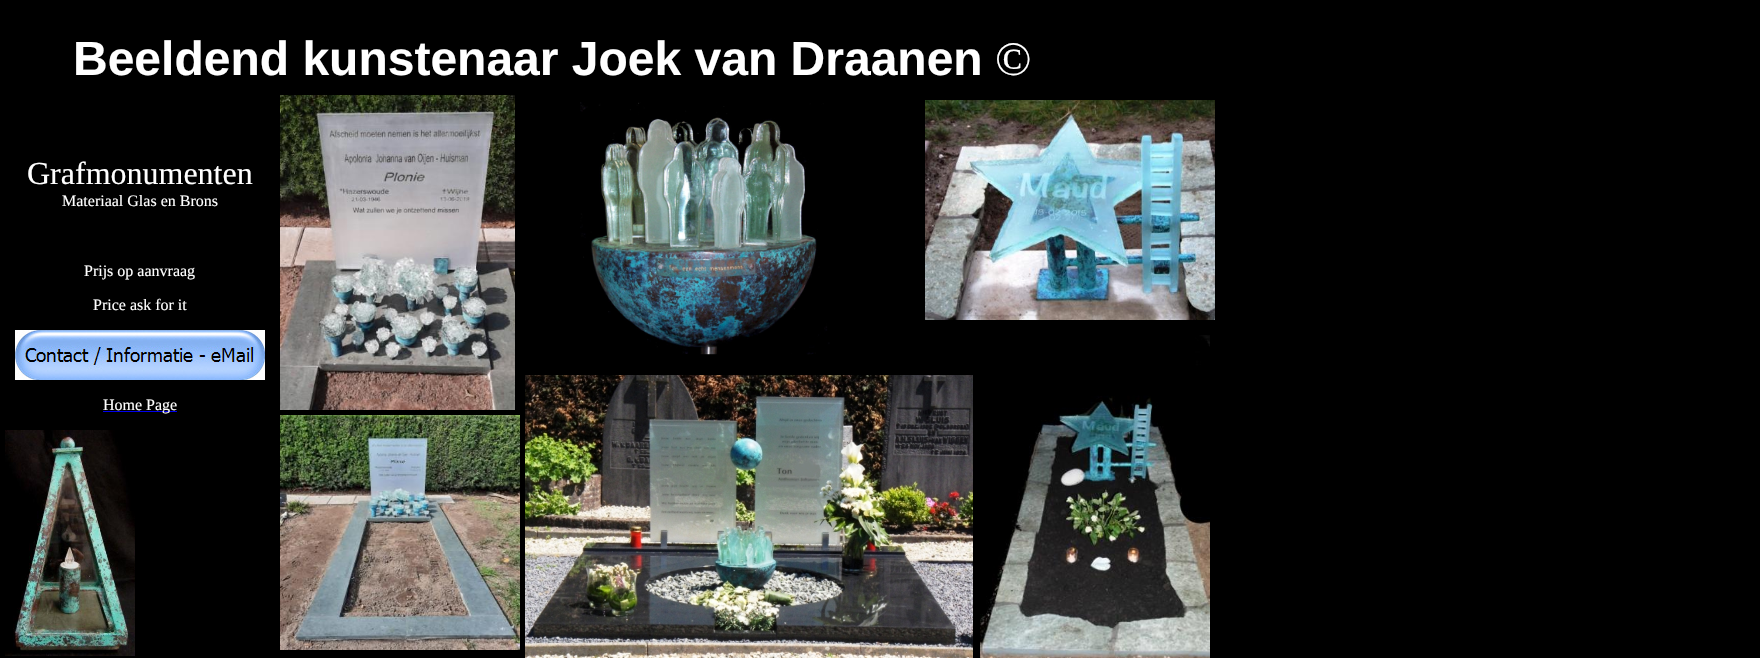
#include "include/core/SkBlurTypes.h"
#include "include/core/SkCanvas.h"
#include "include/core/SkData.h"
#include "include/core/SkFont.h"
#include "include/core/SkFontMgr.h"
#include "include/core/SkImage.h"
#include "include/core/SkMaskFilter.h"
#include "include/core/SkPaint.h"
#include "include/core/SkPathBuilder.h"
#include "include/core/SkTextBlob.h"
#include "include/effects/SkDashPathEffect.h"
#include "include/effects/SkGradientShader.h"
#include "include/utils/SkParsePath.h"

extern sk_sp<SkFontMgr> fontMgr;

static SkFont font(const char* family, int weight, float size, bool italic = false) {
    SkFontStyle style(weight, SkFontStyle::kNormal_Width,
        italic ? SkFontStyle::kItalic_Slant : SkFontStyle::kUpright_Slant);
    SkFont result(fontMgr->matchFamilyStyle(family, style), size);
    result.setSubpixel(true);
    return result;
}

static void drawLabel(SkCanvas* canvas, const char* s, float x, float y, const SkFont& font, SkColor color) {
    SkPaint ink(SkColor4f::FromColor(color));
    ink.setAntiAlias(true);
    canvas->drawString(s, x, y, font, ink);
}

static void fillRect(SkCanvas* canvas, float x, float y, float w, float h, SkColor color) {
    SkPaint ink(SkColor4f::FromColor(color));
    ink.setAntiAlias(true);
    canvas->drawRect(SkRect::MakeXYWH(x, y, w, h), ink);
}

static void drawPhoto(SkCanvas* canvas, const char* path, float x, float y, float w, float h) {
    auto image = SkImages::DeferredFromEncodedData(SkData::MakeFromFileName(path));
    canvas->drawImageRect(image, SkRect::MakeXYWH(x, y, w, h), SkSamplingOptions());
}

void draw(SkCanvas* canvas) {
    SkPaint paint;
    paint.setAntiAlias(true);
    canvas->clear(0xFF000000);
    SkFont font1 = font("Liberation Sans", 700, 48);
    drawLabel(canvas, "Beeldend kunstenaar Joek van Draanen", 73, 75, font1, 0xFFFFFFFF);
    SkFont font2 = font("Liberation Serif", 400, 48);
    drawLabel(canvas, "©", 995, 75, font2, 0xFFFFFFFF);
    SkFont font3 = font("Liberation Serif", 400, 32);
    drawLabel(canvas, "Grafmonumenten", 27, 184, font3, 0xFFFFFFFF);
    SkFont font4 = font("Liberation Serif", 400, 16);
    drawLabel(canvas, "Materiaal Glas en Brons", 62, 206, font4, 0xFFFFFFFF);
    drawLabel(canvas, "Prijs op aanvraag", 84, 276, font4, 0xFFFFFFFF);
    drawLabel(canvas, "Price ask for it", 93, 310, font4, 0xFFFFFFFF);
    drawPhoto(canvas, "assets/img1.png", 15, 330, 250, 50);
    fillRect(canvas, 103, 411, 74, 1, 0xFF0000EE);
    drawLabel(canvas, "Home Page", 103, 410, font4, 0xFFFFFFFF);
    drawPhoto(canvas, "assets/img2.png", 5, 430, 130, 226);
    drawPhoto(canvas, "assets/img3.png", 280, 95, 235, 315);
    drawPhoto(canvas, "assets/img4.png", 580, 102, 250, 253);
    drawPhoto(canvas, "assets/img5.png", 925, 100, 290, 220);
    drawPhoto(canvas, "assets/img6.png", 280, 415, 240, 235);
    drawPhoto(canvas, "assets/img7.png", 525, 375, 448, 283);
    drawPhoto(canvas, "assets/img8.png", 980, 335, 230, 323);
}
